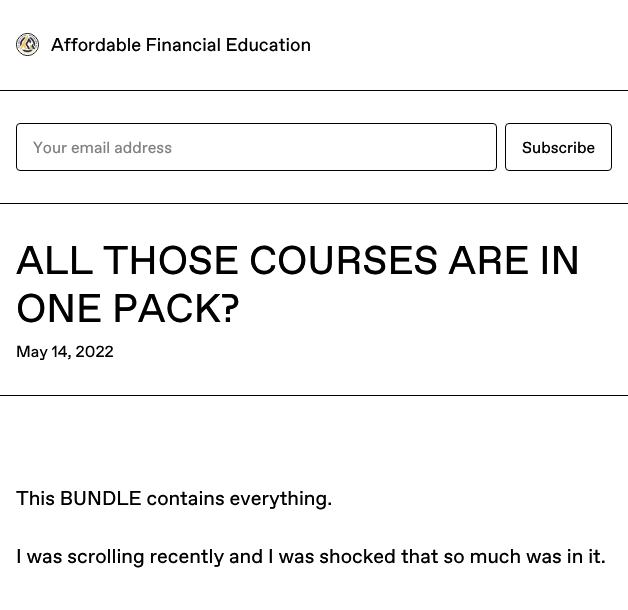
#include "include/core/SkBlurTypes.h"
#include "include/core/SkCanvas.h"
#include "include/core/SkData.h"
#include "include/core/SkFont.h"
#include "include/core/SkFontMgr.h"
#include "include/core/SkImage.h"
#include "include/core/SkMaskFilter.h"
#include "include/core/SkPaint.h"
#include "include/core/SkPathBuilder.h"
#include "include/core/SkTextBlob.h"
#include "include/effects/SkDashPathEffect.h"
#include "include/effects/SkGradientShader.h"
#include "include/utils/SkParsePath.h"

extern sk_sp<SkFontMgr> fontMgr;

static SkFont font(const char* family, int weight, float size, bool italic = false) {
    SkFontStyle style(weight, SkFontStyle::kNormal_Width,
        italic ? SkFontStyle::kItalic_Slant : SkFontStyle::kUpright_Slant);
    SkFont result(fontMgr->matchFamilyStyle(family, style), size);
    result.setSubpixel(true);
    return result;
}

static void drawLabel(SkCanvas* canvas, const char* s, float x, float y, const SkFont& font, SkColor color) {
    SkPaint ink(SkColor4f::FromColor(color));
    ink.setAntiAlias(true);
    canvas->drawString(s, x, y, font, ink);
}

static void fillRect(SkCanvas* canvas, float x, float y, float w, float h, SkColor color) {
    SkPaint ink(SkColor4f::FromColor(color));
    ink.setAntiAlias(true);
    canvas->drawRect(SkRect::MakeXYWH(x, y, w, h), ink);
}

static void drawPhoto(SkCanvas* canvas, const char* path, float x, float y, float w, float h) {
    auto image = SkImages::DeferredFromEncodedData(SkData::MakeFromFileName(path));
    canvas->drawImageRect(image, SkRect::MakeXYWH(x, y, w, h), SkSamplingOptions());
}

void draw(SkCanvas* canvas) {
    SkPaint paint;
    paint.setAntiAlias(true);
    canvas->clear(0xFFFFFFFF);
    fillRect(canvas, 0, 90, 628, 1, 0xFF000000);
    paint.setStroke(true);
    paint.setStrokeWidth(1);
    paint.setColor(0xFF000000);
    canvas->drawCircle(27.5f, 44.5f, 11, paint);
    drawPhoto(canvas, "assets/img1.png", 17, 34, 21, 21);
    SkFont font1 = font("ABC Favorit", 400, 18.4f);
    drawLabel(canvas, "Affordable Financial Education", 51, 51, font1, 0xFF000000);
    fillRect(canvas, 0, 203, 628, 1, 0xFF000000);
    canvas->drawRoundRect(SkRect::MakeXYWH(16.5f, 123.5f, 480, 47), 3.5f, 3.5f, paint);
    SkFont font2 = font("ABC Favorit", 400, 16);
    drawLabel(canvas, "Your email address", 33, 153, font2, 0xFF808080);
    canvas->drawRoundRect(SkRect::MakeXYWH(505.5f, 123.5f, 106, 47), 3.5f, 3.5f, paint);
    drawLabel(canvas, "Subscribe", 522, 153, font2, 0xFF000000);
    fillRect(canvas, 0, 395, 628, 1, 0xFF000000);
    SkFont font3 = font("ABC Favorit", 400, 40);
    drawLabel(canvas, "ALL THOSE COURSES ARE IN", 16, 274, font3, 0xFF000000);
    drawLabel(canvas, "ONE PACK?", 16, 322, font3, 0xFF000000);
    drawLabel(canvas, "May 14, 2022", 16, 357, font2, 0xFF000000);
    SkFont font4 = font("ABC Favorit", 400, 20);
    drawLabel(canvas, "This BUNDLE contains everything.", 16, 505, font4, 0xFF000000);
    drawLabel(canvas, "I was scrolling recently and I was shocked that so much was in it.", 16, 563, font4, 0xFF000000);
}
